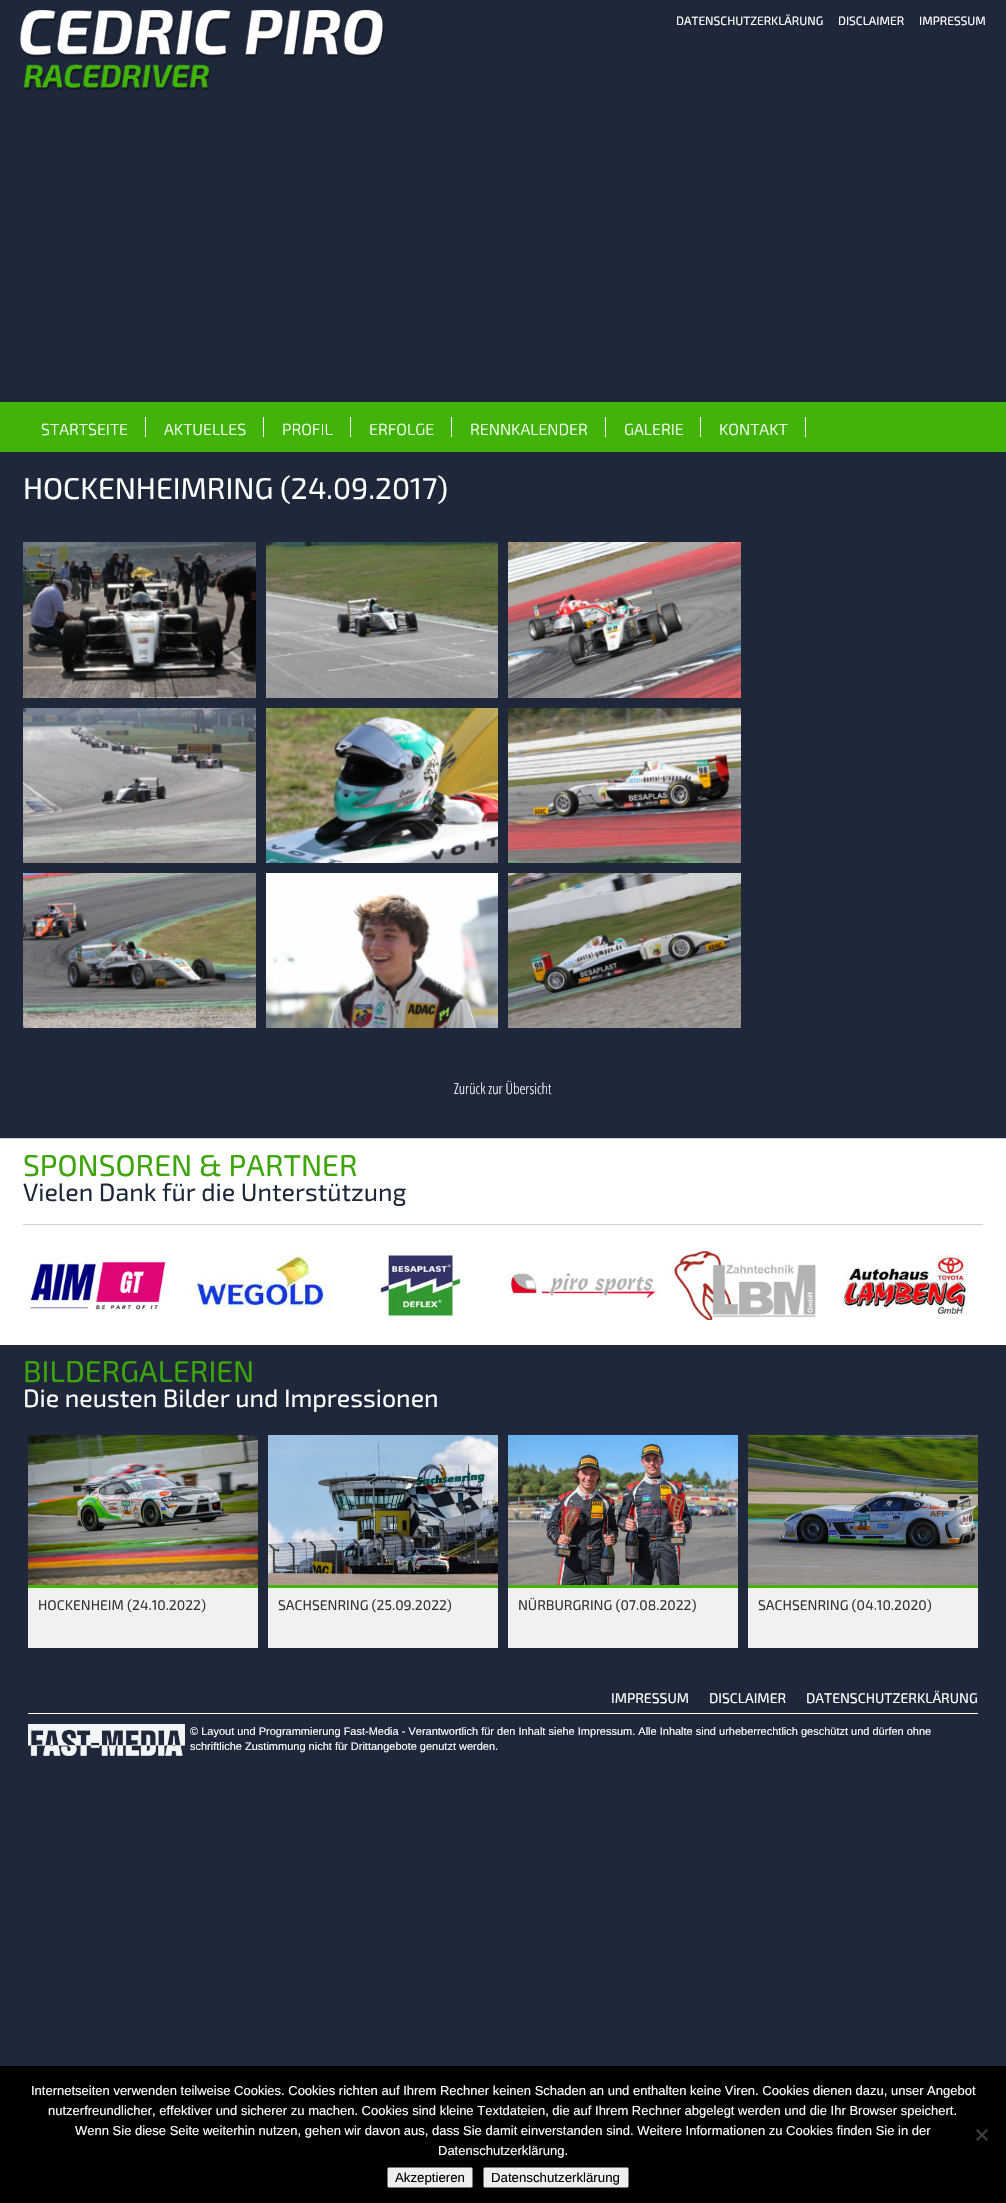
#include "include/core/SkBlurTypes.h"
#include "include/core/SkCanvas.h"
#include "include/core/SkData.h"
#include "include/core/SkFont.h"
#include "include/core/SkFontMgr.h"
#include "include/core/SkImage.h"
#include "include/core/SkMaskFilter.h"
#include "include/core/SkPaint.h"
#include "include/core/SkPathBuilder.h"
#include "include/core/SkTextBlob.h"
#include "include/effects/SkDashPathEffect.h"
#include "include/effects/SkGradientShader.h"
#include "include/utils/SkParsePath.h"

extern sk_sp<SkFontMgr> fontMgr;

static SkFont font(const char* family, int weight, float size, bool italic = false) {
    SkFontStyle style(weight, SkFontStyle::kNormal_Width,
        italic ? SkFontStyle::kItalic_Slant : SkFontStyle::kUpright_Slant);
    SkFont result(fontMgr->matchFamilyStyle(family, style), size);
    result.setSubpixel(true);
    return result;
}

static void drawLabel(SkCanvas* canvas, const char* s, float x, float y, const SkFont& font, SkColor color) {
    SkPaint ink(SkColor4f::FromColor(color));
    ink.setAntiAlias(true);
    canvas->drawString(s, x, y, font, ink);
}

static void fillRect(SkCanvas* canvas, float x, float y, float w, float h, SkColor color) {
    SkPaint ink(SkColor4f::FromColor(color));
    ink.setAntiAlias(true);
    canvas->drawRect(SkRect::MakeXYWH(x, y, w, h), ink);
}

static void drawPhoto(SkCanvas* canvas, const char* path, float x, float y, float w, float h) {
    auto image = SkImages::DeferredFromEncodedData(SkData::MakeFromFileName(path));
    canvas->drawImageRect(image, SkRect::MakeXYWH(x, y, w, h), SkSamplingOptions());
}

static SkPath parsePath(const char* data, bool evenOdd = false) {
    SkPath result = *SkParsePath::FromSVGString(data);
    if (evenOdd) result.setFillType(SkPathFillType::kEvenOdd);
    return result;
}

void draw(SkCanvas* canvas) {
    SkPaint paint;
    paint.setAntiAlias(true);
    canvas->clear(0xFF1E283A);
    drawPhoto(canvas, "assets/img1.png", 20, 10, 364, 81);
    SkFont font1 = font("Exo 2", 400, 12);
    drawLabel(canvas, "DATENSCHUTZERKLÄRUNG", 676, 25, font1, 0xFFFFFFFF);
    drawLabel(canvas, "DISCLAIMER", 838, 25, font1, 0xFFFFFFFF);
    drawLabel(canvas, "IMPRESSUM", 919, 25, font1, 0xFFFFFFFF);
    fillRect(canvas, 0, 402, 1006, 50, 0xFF42B309);
    fillRect(canvas, 145, 417, 1, 20, 0xFFFFFFFF);
    SkFont font2 = font("Exo 2", 300, 16);
    drawLabel(canvas, "STARTSEITE", 41, 435, font2, 0xFFFFFFFF);
    fillRect(canvas, 263, 417, 1, 20, 0xFFFFFFFF);
    drawLabel(canvas, "AKTUELLES", 164, 435, font2, 0xFFFFFFFF);
    fillRect(canvas, 350, 417, 1, 20, 0xFFFFFFFF);
    drawLabel(canvas, "PROFIL", 282, 435, font2, 0xFFFFFFFF);
    fillRect(canvas, 451, 417, 1, 20, 0xFFFFFFFF);
    drawLabel(canvas, "ERFOLGE", 369, 435, font2, 0xFFFFFFFF);
    fillRect(canvas, 605, 417, 1, 20, 0xFFFFFFFF);
    drawLabel(canvas, "RENNKALENDER", 470, 435, font2, 0xFFFFFFFF);
    fillRect(canvas, 700, 417, 1, 20, 0xFFFFFFFF);
    drawLabel(canvas, "GALERIE", 624, 435, font2, 0xFFFFFFFF);
    fillRect(canvas, 805, 417, 1, 20, 0xFFFFFFFF);
    drawLabel(canvas, "KONTAKT", 719, 435, font2, 0xFFFFFFFF);
    SkFont font3 = font("Exo 2", 400, 30);
    drawLabel(canvas, "HOCKENHEIMRING (24.09.2017)", 23, 499, font3, 0xFFFFFFFF);
    drawPhoto(canvas, "assets/img2.png", 23, 542, 233, 156);
    drawPhoto(canvas, "assets/img3.png", 266, 542, 232, 156);
    drawPhoto(canvas, "assets/img4.png", 508, 542, 233, 156);
    drawPhoto(canvas, "assets/img5.png", 23, 708, 233, 155);
    drawPhoto(canvas, "assets/img6.png", 266, 708, 232, 155);
    drawPhoto(canvas, "assets/img7.png", 508, 708, 233, 155);
    drawPhoto(canvas, "assets/img8.png", 23, 873, 233, 155);
    drawPhoto(canvas, "assets/img9.png", 266, 873, 232, 155);
    drawPhoto(canvas, "assets/img10.png", 508, 873, 233, 155);
    SkFont font4 = font("Open Sans Condensed", 300, 15);
    drawLabel(canvas, "Zurück zur Übersicht", 454, 1094, font4, 0xFFFFFFFF);
    fillRect(canvas, 0, 1139, 1006, 206, 0xFFFFFFFF);
    fillRect(canvas, 0, 1138, 1006, 1, 0xFFD1D1D1);
    drawLabel(canvas, "SPONSOREN & PARTNER", 23, 1176, font3, 0xFF3DA409);
    SkFont font5 = font("Exo 2", 400, 25);
    drawLabel(canvas, "Vielen Dank für die Unterstützung", 23, 1201, font5, 0xFF1E283A);
    fillRect(canvas, 23, 1224, 960, 1, 0xFFD1D1D1);
    drawPhoto(canvas, "assets/img11.png", 29, 1260, 138, 53);
    drawPhoto(canvas, "assets/img12.png", 189, 1248, 144, 60);
    drawPhoto(canvas, "assets/img13.png", 377, 1254, 84, 66);
    drawPhoto(canvas, "assets/img14.png", 508, 1272, 150, 30);
    drawPhoto(canvas, "assets/img15.png", 670, 1248, 146, 72);
    drawPhoto(canvas, "assets/img16.png", 838, 1254, 131, 62);
    drawLabel(canvas, "BILDERGALERIEN", 23, 1382, font3, 0xFF3DA409);
    drawLabel(canvas, "Die neusten Bilder und Impressionen", 23, 1407, font5, 0xFFFFFFFF);
    fillRect(canvas, 28, 1588, 230, 60, 0xFFF1F1F1);
    drawPhoto(canvas, "assets/img17.png", 28, 1435, 230, 150);
    fillRect(canvas, 28, 1585, 230, 3, 0xFF42B309);
    SkFont font6 = font("Exo 2", 400, 14);
    drawLabel(canvas, "HOCKENHEIM (24.10.2022)", 38, 1610, font6, 0xFF333333);
    fillRect(canvas, 268, 1588, 230, 60, 0xFFF1F1F1);
    drawPhoto(canvas, "assets/img18.png", 268, 1435, 230, 150);
    fillRect(canvas, 268, 1585, 230, 3, 0xFF42B309);
    drawLabel(canvas, "SACHSENRING (25.09.2022)", 278, 1610, font6, 0xFF333333);
    fillRect(canvas, 508, 1588, 230, 60, 0xFFF1F1F1);
    drawPhoto(canvas, "assets/img19.png", 508, 1435, 230, 150);
    fillRect(canvas, 508, 1585, 230, 3, 0xFF42B309);
    drawLabel(canvas, "NÜRBURGRING (07.08.2022)", 518, 1610, font6, 0xFF333333);
    fillRect(canvas, 748, 1588, 230, 60, 0xFFF1F1F1);
    drawPhoto(canvas, "assets/img20.png", 748, 1435, 230, 150);
    fillRect(canvas, 748, 1585, 230, 3, 0xFF42B309);
    drawLabel(canvas, "SACHSENRING (04.10.2020)", 758, 1610, font6, 0xFF333333);
    fillRect(canvas, 28, 1713, 950, 1, 0xFFFFFFFF);
    drawLabel(canvas, "IMPRESSUM", 611, 1703, font6, 0xFFFFFFFF);
    drawLabel(canvas, "DISCLAIMER", 709, 1703, font6, 0xFFFFFFFF);
    drawLabel(canvas, "DATENSCHUTZERKLÄRUNG", 806, 1703, font6, 0xFFFFFFFF);
    drawPhoto(canvas, "assets/img21.png", 28, 1724, 157, 32);
    SkFont font7 = font("Liberation Sans", 400, 11);
    drawLabel(canvas, "© Layout und Programmierung Fast-Media - Verantwortlich für den Inhalt siehe Impressum. Alle Inhalte sind urheberrechtlich geschützt und dürfen ohne", 190, 1735, font7, 0xFFFFFFFF);
    drawLabel(canvas, "schriftliche Zustimmung nicht für Drittangebote genutzt werden.", 190, 1750, font7, 0xFFFFFFFF);
    fillRect(canvas, 0, 2066, 1006, 137, 0xFF000000);
    SkFont font8 = font("Liberation Sans", 400, 13);
    drawLabel(canvas, "Internetseiten verwenden teilweise Cookies. Cookies richten auf Ihrem Rechner keinen Schaden an und enthalten keine Viren. Cookies dienen dazu, unser Angebot", 31, 2095, font8, 0xFFFFFFFF);
    drawLabel(canvas, "nutzerfreundlicher, effektiver und sicherer zu machen. Cookies sind kleine Textdateien, die auf Ihrem Rechner abgelegt werden und die Ihr Browser speichert.", 48, 2115, font8, 0xFFFFFFFF);
    drawLabel(canvas, "Wenn Sie diese Seite weiterhin nutzen, gehen wir davon aus, dass Sie damit einverstanden sind. Weitere Informationen zu Cookies finden Sie in der", 75, 2135, font8, 0xFFFFFFFF);
    drawLabel(canvas, "Datenschutzerklärung.", 438, 2155, font8, 0xFFFFFFFF);
    paint.setColor(0xFF404040);
    canvas->drawPath(parsePath("M986.5 2129L988 2130.5L977.5 2141L976 2139.5Z"), paint);
    canvas->drawPath(parsePath("M976 2130.5L977.5 2129L988 2139.5L986.5 2141Z"), paint);
    paint.setColor(0xFFEFEFEF);
    canvas->drawRoundRect(SkRect::MakeXYWH(387.5f, 2167.5f, 85, 20), 1.5f, 1.5f, paint);
    paint.setStroke(true);
    paint.setStrokeWidth(1);
    paint.setColor(0xFF767676);
    canvas->drawRoundRect(SkRect::MakeXYWH(387.5f, 2167.5f, 85, 20), 1.5f, 1.5f, paint);
    SkFont font9 = font("Liberation Sans", 400, 13.25f);
    drawLabel(canvas, "Akzeptieren", 395, 2182, font9, 0xFF000000);
    paint.setStroke(false);
    paint.setColor(0xFFEFEFEF);
    canvas->drawRoundRect(SkRect::MakeXYWH(483.5f, 2167.5f, 145, 20), 1.5f, 1.5f, paint);
    paint.setStroke(true);
    paint.setColor(0xFF767676);
    canvas->drawRoundRect(SkRect::MakeXYWH(483.5f, 2167.5f, 145, 20), 1.5f, 1.5f, paint);
    drawLabel(canvas, "Datenschutzerklärung", 491, 2182, font9, 0xFF000000);
}
